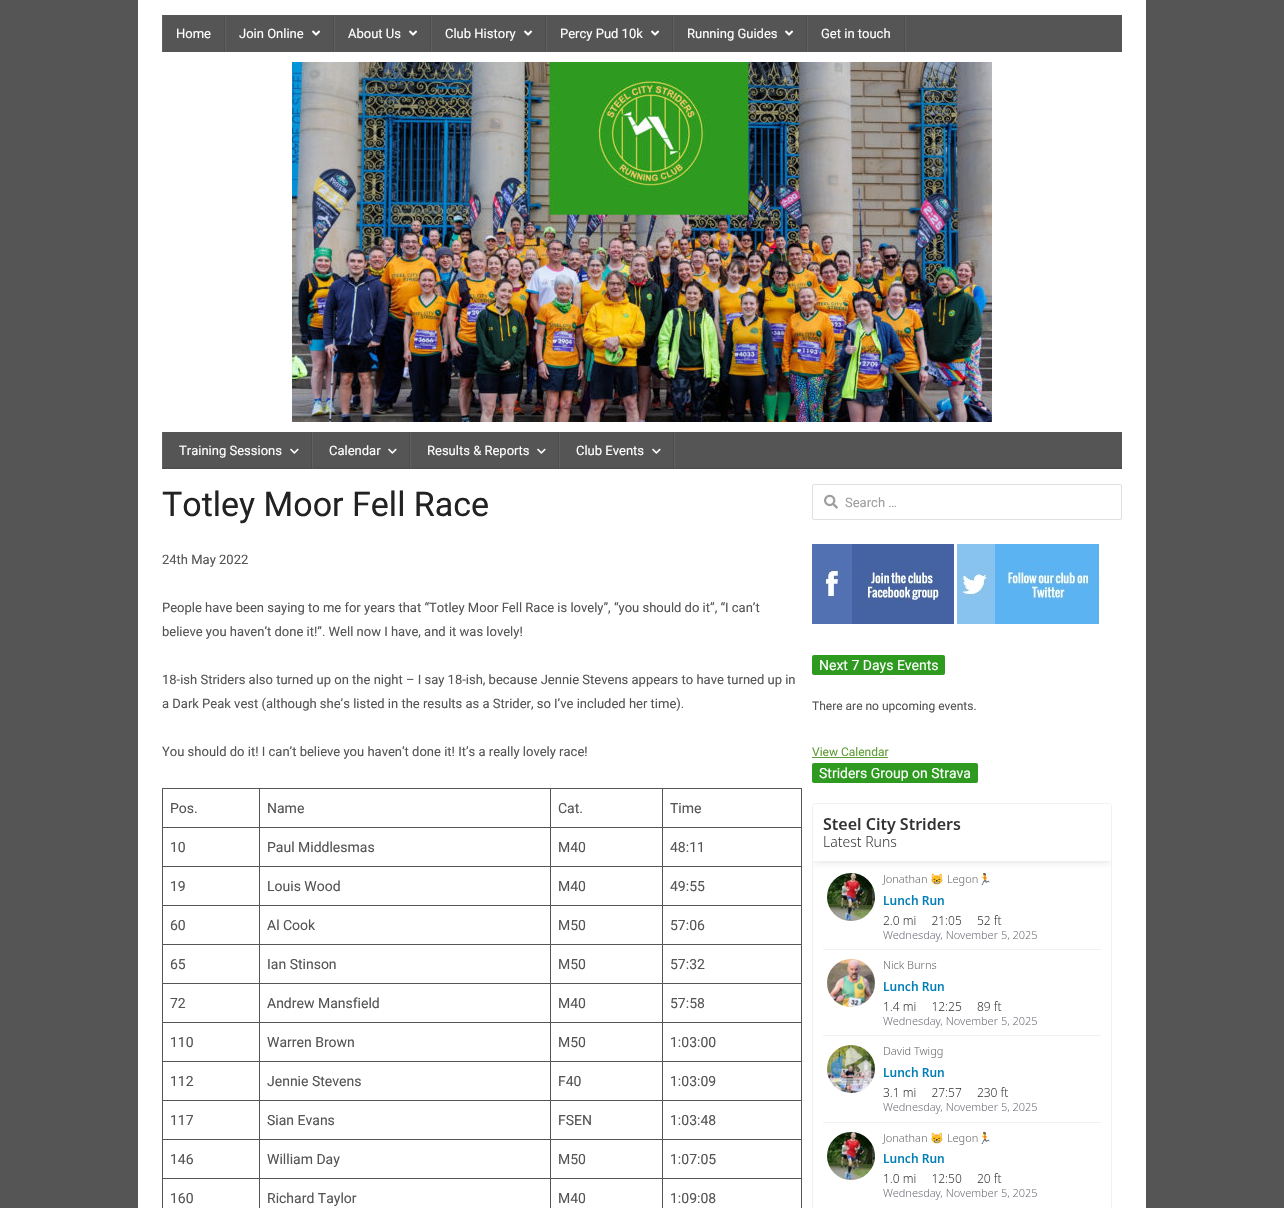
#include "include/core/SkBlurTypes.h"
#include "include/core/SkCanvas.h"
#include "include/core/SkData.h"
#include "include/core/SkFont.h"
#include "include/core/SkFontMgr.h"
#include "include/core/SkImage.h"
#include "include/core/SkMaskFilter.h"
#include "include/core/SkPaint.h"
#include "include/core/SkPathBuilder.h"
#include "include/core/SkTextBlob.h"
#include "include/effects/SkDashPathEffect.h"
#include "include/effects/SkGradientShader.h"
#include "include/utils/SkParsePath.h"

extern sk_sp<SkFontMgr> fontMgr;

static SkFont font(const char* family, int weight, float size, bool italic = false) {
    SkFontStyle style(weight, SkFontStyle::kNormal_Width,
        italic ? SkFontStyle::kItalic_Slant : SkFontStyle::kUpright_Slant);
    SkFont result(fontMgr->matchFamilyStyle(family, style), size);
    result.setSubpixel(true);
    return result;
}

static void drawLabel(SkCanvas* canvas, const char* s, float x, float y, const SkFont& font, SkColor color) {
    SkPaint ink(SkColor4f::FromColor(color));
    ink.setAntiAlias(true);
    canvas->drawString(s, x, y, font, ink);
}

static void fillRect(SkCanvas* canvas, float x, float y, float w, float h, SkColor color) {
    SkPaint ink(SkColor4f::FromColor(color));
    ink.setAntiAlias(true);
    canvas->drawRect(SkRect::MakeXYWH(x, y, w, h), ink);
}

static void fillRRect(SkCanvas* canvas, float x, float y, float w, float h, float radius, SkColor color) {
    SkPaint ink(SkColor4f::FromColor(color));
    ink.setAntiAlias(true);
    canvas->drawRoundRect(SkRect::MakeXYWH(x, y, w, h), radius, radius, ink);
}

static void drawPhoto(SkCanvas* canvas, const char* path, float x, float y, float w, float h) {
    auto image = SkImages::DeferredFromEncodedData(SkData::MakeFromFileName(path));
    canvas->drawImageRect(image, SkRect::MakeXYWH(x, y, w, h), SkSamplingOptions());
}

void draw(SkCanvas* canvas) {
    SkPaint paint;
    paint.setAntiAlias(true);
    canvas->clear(0xFF555555);
    fillRect(canvas, 138, 0, 1008, 1208, 0xFFFFFFFF);
    fillRect(canvas, 163, 15, 959, 37, 0xFF555555);
    fillRect(canvas, 224, 15, 1, 37, 0xFF4D4D4D);
    fillRect(canvas, 162, 15, 1, 37, 0xFF616161);
    SkFont font1 = font("Roboto", 400, 13);
    drawLabel(canvas, "Home", 176, 38, font1, 0xFFFFFFFF);
    fillRect(canvas, 333, 15, 1, 37, 0xFF4D4D4D);
    fillRect(canvas, 225, 15, 1, 37, 0xFF616161);
    drawLabel(canvas, "Join Online", 239, 38, font1, 0xFFFFFFFF);
    drawPhoto(canvas, "assets/img1.png", 312, 30, 9, 6);
    fillRect(canvas, 430, 15, 1, 37, 0xFF4D4D4D);
    fillRect(canvas, 334, 15, 1, 37, 0xFF616161);
    drawLabel(canvas, "About Us", 348, 38, font1, 0xFFFFFFFF);
    drawPhoto(canvas, "assets/img1.png", 409, 30, 9, 6);
    fillRect(canvas, 545, 15, 1, 37, 0xFF4D4D4D);
    fillRect(canvas, 431, 15, 1, 37, 0xFF616161);
    drawLabel(canvas, "Club History", 445, 38, font1, 0xFFFFFFFF);
    drawPhoto(canvas, "assets/img1.png", 524, 30, 9, 6);
    fillRect(canvas, 672, 15, 1, 37, 0xFF4D4D4D);
    fillRect(canvas, 546, 15, 1, 37, 0xFF616161);
    drawLabel(canvas, "Percy Pud 10k", 560, 38, font1, 0xFFFFFFFF);
    drawPhoto(canvas, "assets/img1.png", 651, 30, 9, 6);
    fillRect(canvas, 806, 15, 1, 37, 0xFF4D4D4D);
    fillRect(canvas, 673, 15, 1, 37, 0xFF616161);
    drawLabel(canvas, "Running Guides", 687, 38, font1, 0xFFFFFFFF);
    drawPhoto(canvas, "assets/img1.png", 785, 30, 9, 6);
    fillRect(canvas, 905, 15, 1, 37, 0xFF616161);
    fillRect(canvas, 904, 15, 1, 37, 0xFF4D4D4D);
    fillRect(canvas, 807, 15, 1, 37, 0xFF616161);
    drawLabel(canvas, "Get in touch", 821, 38, font1, 0xFFFFFFFF);
    drawPhoto(canvas, "assets/img2.png", 292, 62, 700, 360);
    fillRect(canvas, 163, 432, 959, 35, 0xFF555555);
    fillRect(canvas, 559, 432, 1, 37, 0xFF616161);
    fillRect(canvas, 673, 432, 1, 37, 0xFF4D4D4D);
    fillRect(canvas, 674, 432, 1, 37, 0xFF616161);
    fillRect(canvas, 410, 432, 1, 37, 0xFF616161);
    fillRect(canvas, 558, 432, 1, 37, 0xFF4D4D4D);
    fillRect(canvas, 312, 432, 1, 37, 0xFF616161);
    fillRect(canvas, 409, 432, 1, 37, 0xFF4D4D4D);
    fillRect(canvas, 162, 432, 1, 37, 0xFF616161);
    fillRect(canvas, 311, 432, 1, 37, 0xFF4D4D4D);
    fillRect(canvas, 162, 467, 960, 2, 0xFF505050);
    fillRect(canvas, 559, 467, 1, 2, 0xFF5C5C5C);
    fillRect(canvas, 673, 467, 1, 2, 0xFF484848);
    fillRect(canvas, 674, 467, 1, 2, 0xFF5C5C5C);
    fillRect(canvas, 410, 467, 1, 2, 0xFF5C5C5C);
    fillRect(canvas, 558, 467, 1, 2, 0xFF484848);
    fillRect(canvas, 312, 467, 1, 2, 0xFF5C5C5C);
    fillRect(canvas, 409, 467, 1, 2, 0xFF484848);
    fillRect(canvas, 162, 467, 1, 2, 0xFF5C5C5C);
    fillRect(canvas, 311, 467, 1, 2, 0xFF484848);
    drawLabel(canvas, "Training Sessions", 179, 455, font1, 0xFFFFFFFF);
    drawPhoto(canvas, "assets/img3.png", 290, 448, 9, 6);
    drawLabel(canvas, "Calendar", 329, 455, font1, 0xFFFFFFFF);
    drawPhoto(canvas, "assets/img3.png", 388, 448, 9, 6);
    drawLabel(canvas, "Results & Reports", 427, 455, font1, 0xFFFFFFFF);
    drawPhoto(canvas, "assets/img3.png", 537, 448, 9, 6);
    drawLabel(canvas, "Club Events", 576, 455, font1, 0xFFFFFFFF);
    drawPhoto(canvas, "assets/img3.png", 652, 448, 9, 6);
    SkFont font2 = font("Roboto", 400, 34);
    drawLabel(canvas, "Totley Moor Fell Race", 162, 516, font2, 0xFF222222);
    drawLabel(canvas, "24th May 2022", 162, 564, font1, 0xFF555555);
    drawLabel(canvas, "People have been saying to me for years that “Totley Moor Fell Race is lovely”, “you should do it”, “I can’t", 162, 612, font1, 0xFF555555);
    drawLabel(canvas, "believe you haven’t done it!”. Well now I have, and it was lovely!", 162, 636, font1, 0xFF555555);
    drawLabel(canvas, "18-ish Striders also turned up on the night – I say 18-ish, because Jennie Stevens appears to have turned up in", 162, 684, font1, 0xFF555555);
    drawLabel(canvas, "a Dark Peak vest (although she’s listed in the results as a Strider, so I’ve included her time).", 162, 708, font1, 0xFF555555);
    drawLabel(canvas, "You should do it! I can’t believe you haven’t done it! It’s a really lovely race!", 162, 756, font1, 0xFF555555);
    fillRect(canvas, 662, 788, 140, 1, 0xFF555555);
    fillRect(canvas, 662, 827, 140, 1, 0xFF555555);
    fillRect(canvas, 662, 866, 140, 1, 0xFF555555);
    fillRect(canvas, 662, 905, 140, 1, 0xFF555555);
    fillRect(canvas, 662, 944, 140, 1, 0xFF555555);
    fillRect(canvas, 662, 983, 140, 1, 0xFF555555);
    fillRect(canvas, 662, 1022, 140, 1, 0xFF555555);
    fillRect(canvas, 662, 1061, 140, 1, 0xFF555555);
    fillRect(canvas, 662, 1100, 140, 1, 0xFF555555);
    fillRect(canvas, 662, 1139, 140, 1, 0xFF555555);
    fillRect(canvas, 662, 1178, 140, 1, 0xFF555555);
    fillRect(canvas, 662, 1178, 1, 30, 0xFF555555);
    fillRect(canvas, 550, 1178, 113, 1, 0xFF555555);
    fillRect(canvas, 662, 1139, 1, 40, 0xFF555555);
    fillRect(canvas, 550, 1139, 113, 1, 0xFF555555);
    fillRect(canvas, 662, 1100, 1, 40, 0xFF555555);
    fillRect(canvas, 550, 1100, 113, 1, 0xFF555555);
    fillRect(canvas, 662, 1061, 1, 40, 0xFF555555);
    fillRect(canvas, 550, 1061, 113, 1, 0xFF555555);
    fillRect(canvas, 662, 1022, 1, 40, 0xFF555555);
    fillRect(canvas, 550, 1022, 113, 1, 0xFF555555);
    fillRect(canvas, 662, 983, 1, 40, 0xFF555555);
    fillRect(canvas, 550, 983, 113, 1, 0xFF555555);
    fillRect(canvas, 662, 944, 1, 40, 0xFF555555);
    fillRect(canvas, 550, 944, 113, 1, 0xFF555555);
    fillRect(canvas, 662, 905, 1, 40, 0xFF555555);
    fillRect(canvas, 550, 905, 113, 1, 0xFF555555);
    fillRect(canvas, 662, 866, 1, 40, 0xFF555555);
    fillRect(canvas, 550, 866, 113, 1, 0xFF555555);
    fillRect(canvas, 662, 827, 1, 40, 0xFF555555);
    fillRect(canvas, 550, 827, 113, 1, 0xFF555555);
    fillRect(canvas, 662, 788, 1, 40, 0xFF555555);
    fillRect(canvas, 550, 788, 113, 1, 0xFF555555);
    fillRect(canvas, 550, 1178, 1, 30, 0xFF555555);
    fillRect(canvas, 259, 1178, 292, 1, 0xFF555555);
    fillRect(canvas, 550, 1139, 1, 40, 0xFF555555);
    fillRect(canvas, 259, 1139, 292, 1, 0xFF555555);
    fillRect(canvas, 550, 1100, 1, 40, 0xFF555555);
    fillRect(canvas, 259, 1100, 292, 1, 0xFF555555);
    fillRect(canvas, 550, 1061, 1, 40, 0xFF555555);
    fillRect(canvas, 259, 1061, 292, 1, 0xFF555555);
    fillRect(canvas, 550, 1022, 1, 40, 0xFF555555);
    fillRect(canvas, 259, 1022, 292, 1, 0xFF555555);
    fillRect(canvas, 550, 983, 1, 40, 0xFF555555);
    fillRect(canvas, 259, 983, 292, 1, 0xFF555555);
    fillRect(canvas, 550, 944, 1, 40, 0xFF555555);
    fillRect(canvas, 259, 944, 292, 1, 0xFF555555);
    fillRect(canvas, 550, 905, 1, 40, 0xFF555555);
    fillRect(canvas, 259, 905, 292, 1, 0xFF555555);
    fillRect(canvas, 550, 866, 1, 40, 0xFF555555);
    fillRect(canvas, 259, 866, 292, 1, 0xFF555555);
    fillRect(canvas, 550, 827, 1, 40, 0xFF555555);
    fillRect(canvas, 259, 827, 292, 1, 0xFF555555);
    fillRect(canvas, 550, 788, 1, 40, 0xFF555555);
    fillRect(canvas, 259, 788, 292, 1, 0xFF555555);
    fillRect(canvas, 259, 1178, 1, 30, 0xFF555555);
    fillRect(canvas, 162, 1178, 98, 1, 0xFF555555);
    fillRect(canvas, 259, 1139, 1, 40, 0xFF555555);
    fillRect(canvas, 162, 1139, 98, 1, 0xFF555555);
    fillRect(canvas, 259, 1100, 1, 40, 0xFF555555);
    fillRect(canvas, 162, 1100, 98, 1, 0xFF555555);
    fillRect(canvas, 259, 1061, 1, 40, 0xFF555555);
    fillRect(canvas, 162, 1061, 98, 1, 0xFF555555);
    fillRect(canvas, 259, 1022, 1, 40, 0xFF555555);
    fillRect(canvas, 162, 1022, 98, 1, 0xFF555555);
    fillRect(canvas, 259, 983, 1, 40, 0xFF555555);
    fillRect(canvas, 162, 983, 98, 1, 0xFF555555);
    fillRect(canvas, 259, 944, 1, 40, 0xFF555555);
    fillRect(canvas, 162, 944, 98, 1, 0xFF555555);
    fillRect(canvas, 259, 905, 1, 40, 0xFF555555);
    fillRect(canvas, 162, 905, 98, 1, 0xFF555555);
    fillRect(canvas, 259, 866, 1, 40, 0xFF555555);
    fillRect(canvas, 162, 866, 98, 1, 0xFF555555);
    fillRect(canvas, 259, 827, 1, 40, 0xFF555555);
    fillRect(canvas, 162, 827, 98, 1, 0xFF555555);
    fillRect(canvas, 259, 788, 1, 40, 0xFF555555);
    fillRect(canvas, 162, 788, 98, 1, 0xFF555555);
    fillRect(canvas, 162, 1178, 1, 30, 0xFF555555);
    fillRect(canvas, 162, 1139, 1, 40, 0xFF555555);
    fillRect(canvas, 162, 1100, 1, 40, 0xFF555555);
    fillRect(canvas, 162, 1061, 1, 40, 0xFF555555);
    fillRect(canvas, 162, 1022, 1, 40, 0xFF555555);
    fillRect(canvas, 162, 983, 1, 40, 0xFF555555);
    fillRect(canvas, 162, 944, 1, 40, 0xFF555555);
    fillRect(canvas, 162, 905, 1, 40, 0xFF555555);
    fillRect(canvas, 162, 866, 1, 40, 0xFF555555);
    fillRect(canvas, 162, 827, 1, 40, 0xFF555555);
    fillRect(canvas, 162, 788, 1, 40, 0xFF555555);
    SkFont font3 = font("Roboto", 400, 14);
    drawLabel(canvas, "Pos.", 170, 813, font3, 0xFF555555);
    drawLabel(canvas, "Name", 267, 813, font3, 0xFF555555);
    drawLabel(canvas, "Cat.", 558, 813, font3, 0xFF555555);
    fillRect(canvas, 801, 1178, 1, 30, 0xFF555555);
    fillRect(canvas, 801, 1139, 1, 40, 0xFF555555);
    fillRect(canvas, 801, 1100, 1, 40, 0xFF555555);
    fillRect(canvas, 801, 1061, 1, 40, 0xFF555555);
    fillRect(canvas, 801, 1022, 1, 40, 0xFF555555);
    fillRect(canvas, 801, 983, 1, 40, 0xFF555555);
    fillRect(canvas, 801, 944, 1, 40, 0xFF555555);
    fillRect(canvas, 801, 905, 1, 40, 0xFF555555);
    fillRect(canvas, 801, 866, 1, 40, 0xFF555555);
    fillRect(canvas, 801, 827, 1, 40, 0xFF555555);
    fillRect(canvas, 801, 788, 1, 40, 0xFF555555);
    drawLabel(canvas, "Time", 670, 813, font3, 0xFF555555);
    drawLabel(canvas, "10", 170, 852, font3, 0xFF555555);
    drawLabel(canvas, "Paul Middlesmas", 267, 852, font3, 0xFF555555);
    drawLabel(canvas, "M40", 558, 852, font3, 0xFF555555);
    drawLabel(canvas, "48:11", 670, 852, font3, 0xFF555555);
    drawLabel(canvas, "19", 170, 891, font3, 0xFF555555);
    drawLabel(canvas, "Louis Wood", 267, 891, font3, 0xFF555555);
    drawLabel(canvas, "M40", 558, 891, font3, 0xFF555555);
    drawLabel(canvas, "49:55", 670, 891, font3, 0xFF555555);
    drawLabel(canvas, "60", 170, 930, font3, 0xFF555555);
    drawLabel(canvas, "Al Cook", 267, 930, font3, 0xFF555555);
    drawLabel(canvas, "M50", 558, 930, font3, 0xFF555555);
    drawLabel(canvas, "57:06", 670, 930, font3, 0xFF555555);
    drawLabel(canvas, "65", 170, 969, font3, 0xFF555555);
    drawLabel(canvas, "Ian Stinson", 267, 969, font3, 0xFF555555);
    drawLabel(canvas, "M50", 558, 969, font3, 0xFF555555);
    drawLabel(canvas, "57:32", 670, 969, font3, 0xFF555555);
    drawLabel(canvas, "72", 170, 1008, font3, 0xFF555555);
    drawLabel(canvas, "Andrew Mansfield", 267, 1008, font3, 0xFF555555);
    drawLabel(canvas, "M40", 558, 1008, font3, 0xFF555555);
    drawLabel(canvas, "57:58", 670, 1008, font3, 0xFF555555);
    drawLabel(canvas, "110", 170, 1047, font3, 0xFF555555);
    drawLabel(canvas, "Warren Brown", 267, 1047, font3, 0xFF555555);
    drawLabel(canvas, "M50", 558, 1047, font3, 0xFF555555);
    drawLabel(canvas, "1:03:00", 670, 1047, font3, 0xFF555555);
    drawLabel(canvas, "112", 170, 1086, font3, 0xFF555555);
    drawLabel(canvas, "Jennie Stevens", 267, 1086, font3, 0xFF555555);
    drawLabel(canvas, "F40", 558, 1086, font3, 0xFF555555);
    drawLabel(canvas, "1:03:09", 670, 1086, font3, 0xFF555555);
    drawLabel(canvas, "117", 170, 1125, font3, 0xFF555555);
    drawLabel(canvas, "Sian Evans", 267, 1125, font3, 0xFF555555);
    drawLabel(canvas, "FSEN", 558, 1125, font3, 0xFF555555);
    drawLabel(canvas, "1:03:48", 670, 1125, font3, 0xFF555555);
    drawLabel(canvas, "146", 170, 1164, font3, 0xFF555555);
    drawLabel(canvas, "William Day", 267, 1164, font3, 0xFF555555);
    drawLabel(canvas, "M50", 558, 1164, font3, 0xFF555555);
    drawLabel(canvas, "1:07:05", 670, 1164, font3, 0xFF555555);
    drawLabel(canvas, "160", 170, 1203, font3, 0xFF555555);
    drawLabel(canvas, "Richard Taylor", 267, 1203, font3, 0xFF555555);
    drawLabel(canvas, "M40", 558, 1203, font3, 0xFF555555);
    drawLabel(canvas, "1:09:08", 670, 1203, font3, 0xFF555555);
    paint.setStroke(true);
    paint.setStrokeWidth(1);
    paint.setColor(0xFFE0E0E0);
    canvas->drawRoundRect(SkRect::MakeXYWH(812.5f, 484.5f, 309, 35), 1.5f, 1.5f, paint);
    drawPhoto(canvas, "assets/img4.png", 824, 494, 14, 15);
    drawLabel(canvas, "Search …", 845, 507, font1, 0xFF9E9E9E);
    drawPhoto(canvas, "assets/img5.png", 812, 544, 142, 80);
    drawPhoto(canvas, "assets/img6.png", 957, 544, 142, 80);
    fillRRect(canvas, 812, 655, 133, 20, 2, 0xFF2E9A1F);
    drawLabel(canvas, "Next 7 Days Events", 819, 670, font3, 0xFFFFFFFF);
    SkFont font4 = font("Roboto", 400, 12);
    drawLabel(canvas, "There are no upcoming events.", 812, 710, font4, 0xFF555555);
    drawLabel(canvas, "View Calendar", 812, 756, font4, 0xFF619C36);
    fillRect(canvas, 812, 757, 76, 1, 0xFF619C36);
    fillRRect(canvas, 812, 763, 166, 20, 2, 0xFF2E9A1F);
    drawLabel(canvas, "Striders Group on Strava", 819, 778, font3, 0xFFFFFFFF);
    drawPhoto(canvas, "assets/img7.png", 812, 803, 300, 405);
}
